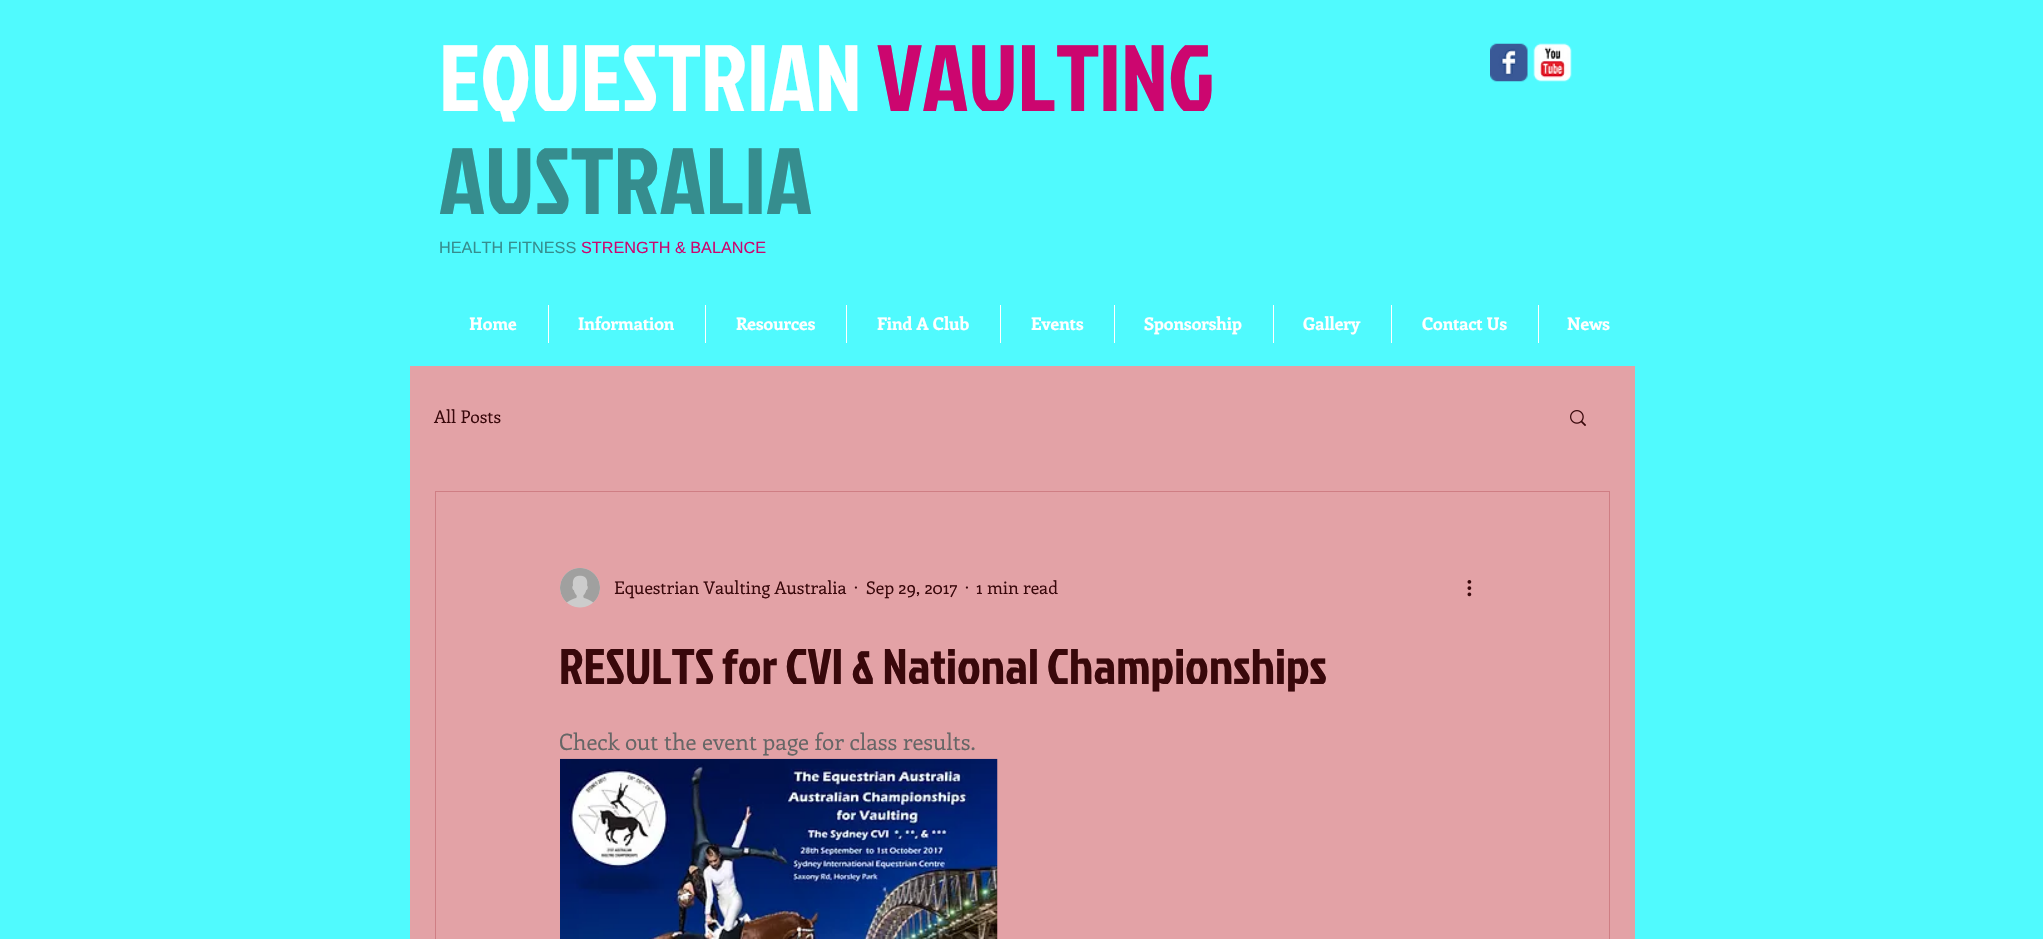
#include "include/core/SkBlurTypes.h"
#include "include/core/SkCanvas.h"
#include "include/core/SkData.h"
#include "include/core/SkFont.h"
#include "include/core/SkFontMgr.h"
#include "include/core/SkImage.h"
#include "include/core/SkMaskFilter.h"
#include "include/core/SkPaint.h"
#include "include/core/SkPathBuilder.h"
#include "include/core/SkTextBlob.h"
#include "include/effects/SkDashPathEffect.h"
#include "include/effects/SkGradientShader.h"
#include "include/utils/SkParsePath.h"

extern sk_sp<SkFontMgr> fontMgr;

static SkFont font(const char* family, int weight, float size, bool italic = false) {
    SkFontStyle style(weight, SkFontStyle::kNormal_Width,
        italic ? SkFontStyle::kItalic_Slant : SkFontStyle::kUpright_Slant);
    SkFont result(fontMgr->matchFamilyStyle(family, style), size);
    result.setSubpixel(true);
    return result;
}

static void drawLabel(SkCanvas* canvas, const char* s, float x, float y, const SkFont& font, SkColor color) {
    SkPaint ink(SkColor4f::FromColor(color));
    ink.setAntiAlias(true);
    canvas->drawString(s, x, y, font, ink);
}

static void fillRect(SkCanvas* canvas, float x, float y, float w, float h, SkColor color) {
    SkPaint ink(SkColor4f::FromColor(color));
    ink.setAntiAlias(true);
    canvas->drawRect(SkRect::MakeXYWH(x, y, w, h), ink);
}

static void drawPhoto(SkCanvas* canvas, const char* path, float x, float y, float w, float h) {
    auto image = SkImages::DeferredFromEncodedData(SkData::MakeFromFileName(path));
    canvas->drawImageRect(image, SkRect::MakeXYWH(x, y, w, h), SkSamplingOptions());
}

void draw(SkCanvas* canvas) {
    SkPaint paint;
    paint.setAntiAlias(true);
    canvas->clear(0xFF50FAFE);
    SkFont font1 = font("Jockey One", 400, 93.75f);
    drawLabel(canvas, "EQUESTRIAN", 439, 111, font1, 0xFFFFFFFF);
    drawLabel(canvas, "VAULTING", 877, 111, font1, 0xFFCC066F);
    drawLabel(canvas, "AUSTRALIA", 439, 214, font1, 0xFF368D8E);
    drawPhoto(canvas, "assets/img1.png", 1490, 43, 38, 39);
    drawPhoto(canvas, "assets/img2.png", 1533, 43, 39, 39);
    SkFont font2 = font("Liberation Sans", 400, 16.25f);
    drawLabel(canvas, "HEALTH FITNESS", 439, 253, font2, 0xFF368D8E);
    drawLabel(canvas, "STRENGTH & BALANCE", 581, 253, font2, 0xFFCC066F);
    SkFont font3 = font("Enriqueta", 700, 17.5f);
    drawLabel(canvas, "Home", 469, 330, font3, 0xFFFFFFFF);
    fillRect(canvas, 548, 305, 1, 38, 0xFFFFFFFF);
    drawLabel(canvas, "Information", 578, 330, font3, 0xFFFFFFFF);
    fillRect(canvas, 705, 305, 1, 38, 0xFFFFFFFF);
    drawLabel(canvas, "Resources", 736, 330, font3, 0xFFFFFFFF);
    fillRect(canvas, 846, 305, 1, 38, 0xFFFFFFFF);
    drawLabel(canvas, "Find A Club", 877, 330, font3, 0xFFFFFFFF);
    fillRect(canvas, 1000, 305, 1, 38, 0xFFFFFFFF);
    drawLabel(canvas, "Events", 1031, 330, font3, 0xFFFFFFFF);
    fillRect(canvas, 1114, 305, 1, 38, 0xFFFFFFFF);
    drawLabel(canvas, "Sponsorship", 1144, 330, font3, 0xFFFFFFFF);
    fillRect(canvas, 1273, 305, 1, 38, 0xFFFFFFFF);
    drawLabel(canvas, "Gallery", 1303, 330, font3, 0xFFFFFFFF);
    fillRect(canvas, 1391, 305, 1, 38, 0xFFFFFFFF);
    drawLabel(canvas, "Contact Us", 1422, 330, font3, 0xFFFFFFFF);
    fillRect(canvas, 1538, 305, 1, 38, 0xFFFFFFFF);
    drawLabel(canvas, "News", 1567, 330, font3, 0xFFFFFFFF);
    fillRect(canvas, 410, 366, 1225, 573, 0xFFE3A2A6);
    SkFont font4 = font("Enriqueta", 400, 17.5f);
    drawLabel(canvas, "All Posts", 434, 423, font4, 0xFF39080B);
    drawPhoto(canvas, "assets/img3.png", 1570, 410, 16, 16);
    paint.setStroke(true);
    paint.setStrokeWidth(1);
    paint.setColor(0xFFCF7E84);
    canvas->drawRect(SkRect::MakeXYWH(435.5f, 491.5f, 1174, 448), paint);
    drawPhoto(canvas, "assets/img4.png", 560, 568, 40, 40);
    drawLabel(canvas, "Equestrian Vaulting Australia", 614, 594, font4, 0xFF39080B);
    drawLabel(canvas, "·", 854, 594, font4, 0xFF39080B);
    drawLabel(canvas, "Sep 29, 2017", 866, 594, font4, 0xFF39080B);
    drawLabel(canvas, "·", 965, 594, font4, 0xFF39080B);
    drawLabel(canvas, "1 min read", 976, 594, font4, 0xFF39080B);
    drawPhoto(canvas, "assets/img5.png", 1467, 580, 5, 17);
    SkFont font5 = font("Jockey One", 400, 50);
    drawLabel(canvas, "RESULTS for CVI & National Championships", 559, 684, font5, 0xFF39080B);
    SkFont font6 = font("Enriqueta", 400, 22.5f);
    drawLabel(canvas, "Check out the event page for class results.", 559, 750, font6, 0xFF666666);
    drawPhoto(canvas, "assets/img6.png", 560, 758, 438, 181);
}
